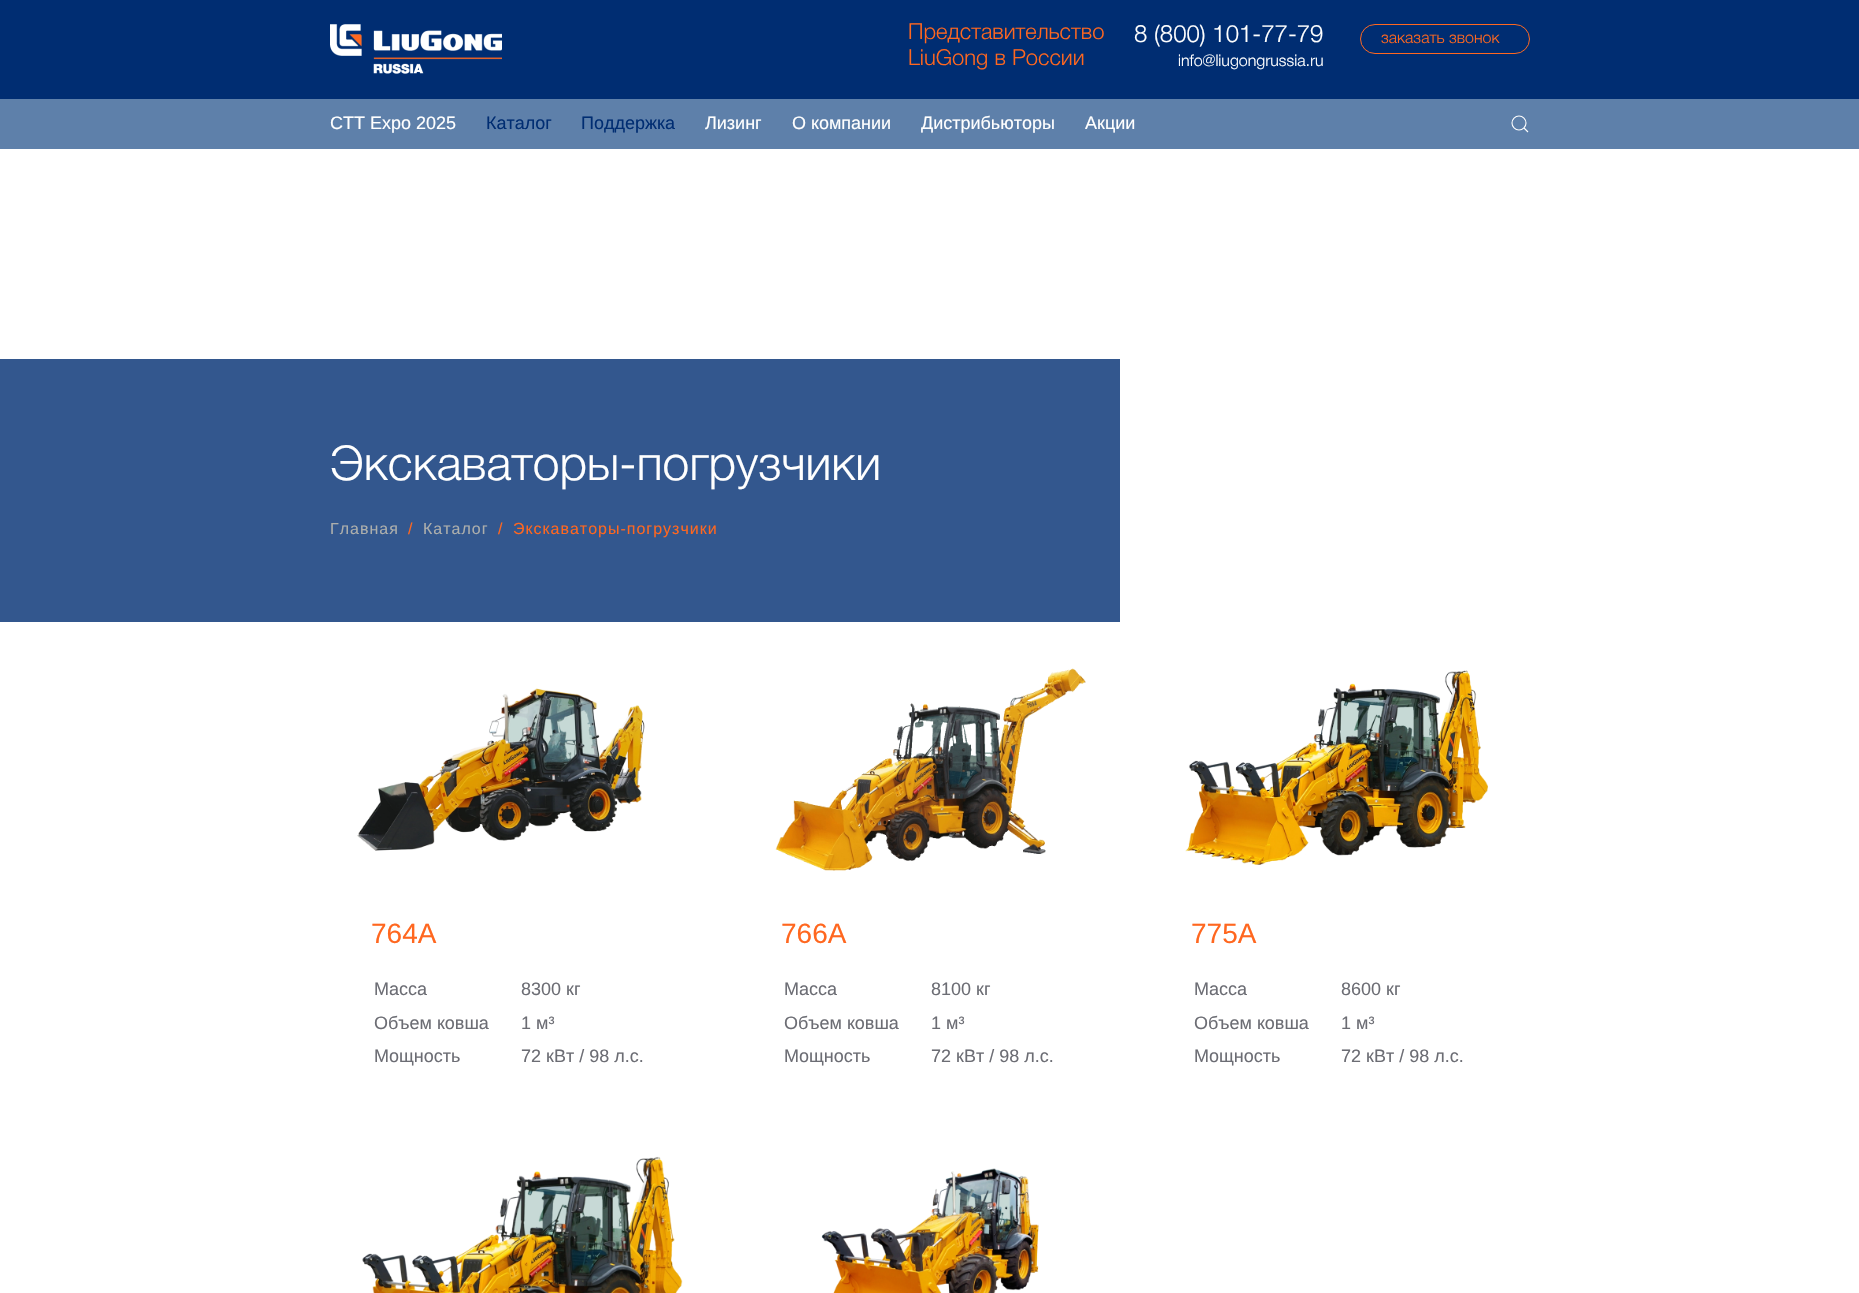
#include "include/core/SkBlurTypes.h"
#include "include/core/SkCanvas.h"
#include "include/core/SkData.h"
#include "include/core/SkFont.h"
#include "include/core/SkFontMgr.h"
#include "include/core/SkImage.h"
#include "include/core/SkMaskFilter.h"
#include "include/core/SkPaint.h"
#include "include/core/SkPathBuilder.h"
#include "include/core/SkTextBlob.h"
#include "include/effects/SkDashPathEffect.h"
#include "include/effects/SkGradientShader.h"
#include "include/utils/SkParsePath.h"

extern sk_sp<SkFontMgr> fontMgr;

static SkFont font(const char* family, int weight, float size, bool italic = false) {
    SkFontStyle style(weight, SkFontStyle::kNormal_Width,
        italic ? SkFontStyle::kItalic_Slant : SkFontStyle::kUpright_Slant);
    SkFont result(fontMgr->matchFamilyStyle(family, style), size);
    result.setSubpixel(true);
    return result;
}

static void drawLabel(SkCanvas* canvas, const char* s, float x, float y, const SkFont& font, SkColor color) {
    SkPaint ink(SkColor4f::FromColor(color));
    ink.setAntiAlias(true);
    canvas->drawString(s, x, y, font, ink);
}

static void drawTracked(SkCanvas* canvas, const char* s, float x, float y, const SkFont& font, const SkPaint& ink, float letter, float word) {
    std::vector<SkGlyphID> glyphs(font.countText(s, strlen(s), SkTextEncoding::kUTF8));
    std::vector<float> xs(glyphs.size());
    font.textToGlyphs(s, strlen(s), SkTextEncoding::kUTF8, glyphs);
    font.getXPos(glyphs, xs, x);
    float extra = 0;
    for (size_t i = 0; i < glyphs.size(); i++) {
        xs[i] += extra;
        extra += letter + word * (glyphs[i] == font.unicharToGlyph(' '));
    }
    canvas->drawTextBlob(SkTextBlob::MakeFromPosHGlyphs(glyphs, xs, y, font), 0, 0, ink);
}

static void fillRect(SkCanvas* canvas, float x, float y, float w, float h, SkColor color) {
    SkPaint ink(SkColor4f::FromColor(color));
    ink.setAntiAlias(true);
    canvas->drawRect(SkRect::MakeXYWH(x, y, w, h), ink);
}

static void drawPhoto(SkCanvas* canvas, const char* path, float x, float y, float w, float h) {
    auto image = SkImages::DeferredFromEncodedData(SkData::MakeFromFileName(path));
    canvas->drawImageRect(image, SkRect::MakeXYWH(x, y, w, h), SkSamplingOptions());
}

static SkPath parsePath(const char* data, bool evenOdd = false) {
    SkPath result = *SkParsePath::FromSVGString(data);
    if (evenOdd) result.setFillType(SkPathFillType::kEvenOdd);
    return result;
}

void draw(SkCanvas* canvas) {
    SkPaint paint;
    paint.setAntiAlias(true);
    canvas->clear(0xFFFFFFFF);
    fillRect(canvas, 0, 0, 1859, 99, 0xFF002D72);
    drawPhoto(canvas, "assets/img1.png", 330, 24, 172, 50);
    SkFont font1 = font("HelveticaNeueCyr", 300, 22);
    drawLabel(canvas, "Представительство", 908, 39, font1, 0xFFFF671F);
    drawLabel(canvas, "LiuGong в России", 908, 65, font1, 0xFFFF671F);
    SkFont font2 = font("HelveticaNeueCyr", 300, 24);
    drawLabel(canvas, "8 (800) 101-77-79", 1134, 42, font2, 0xFFFFFFFF);
    SkFont font3 = font("HelveticaNeueCyr", 300, 16);
    drawLabel(canvas, "info@liugongrussia.ru", 1178, 66, font3, 0xFFFFFFFF);
    paint.setStroke(true);
    paint.setStrokeWidth(1);
    paint.setColor(0xFFFF671F);
    canvas->drawRoundRect(SkRect::MakeXYWH(1360.5f, 24.5f, 169, 29), 14.5f, 14.5f, paint);
    drawLabel(canvas, "заказать звонок", 1381, 43, font3, 0xFFFF671F);
    fillRect(canvas, 0, 99, 1859, 50, 0xFF5E80AA);
    SkFont font4 = font("Liberation Sans", 400, 18);
    drawLabel(canvas, "CTT Expo 2025", 330, 129, font4, 0xFFFFFFFF);
    drawLabel(canvas, "Каталог", 486, 129, font4, 0xFF002D72);
    drawLabel(canvas, "Поддержка", 581, 129, font4, 0xFF002D72);
    drawLabel(canvas, "Лизинг", 705, 129, font4, 0xFFFFFFFF);
    drawLabel(canvas, "О компании", 792, 129, font4, 0xFFFFFFFF);
    drawLabel(canvas, "Дистрибьюторы", 921, 129, font4, 0xFFFFFFFF);
    drawLabel(canvas, "Акции", 1085, 129, font4, 0xFFFFFFFF);
    paint.setStrokeWidth(1.1f);
    paint.setColor(0xFFFFFFFF);
    canvas->drawCircle(1519, 123, 7, paint);
    canvas->drawPath(parsePath("M1524 128L1528 132Z"), paint);
    fillRect(canvas, 0, 359, 1120, 263, 0xFF33578E);
    SkFont font5 = font("HelveticaNeueCyr", 300, 48);
    drawLabel(canvas, "Экскаваторы-погрузчики", 330, 480, font5, 0xFFFFFFFF);
    SkFont font6 = font("Liberation Sans", 400, 16);
    paint.setStroke(false);
    paint.setColor(0xFFACAEAC);
    drawTracked(canvas, "Главная", 330, 534, font6, paint, 1, 0);
    drawLabel(canvas, "/", 408, 534, font6, 0xFFFF671F);
    drawTracked(canvas, "Каталог", 423, 534, font6, paint, 1, 0);
    drawLabel(canvas, "/", 498, 534, font6, 0xFFFF671F);
    paint.setColor(0xFFFF671F);
    drawTracked(canvas, "Экскаваторы-погрузчики", 513, 534, font6, paint, 1, 0);
    drawPhoto(canvas, "assets/img2.png", 357, 688, 288, 163);
    SkFont font7 = font("Liberation Sans", 400, 28);
    drawLabel(canvas, "764А", 371, 943, font7, 0xFFFF671F);
    drawLabel(canvas, "Масса", 374, 995, font4, 0xFF6C6D74);
    drawLabel(canvas, "8300 кг", 521, 995, font4, 0xFF6C6D74);
    drawLabel(canvas, "Объем ковша", 374, 1029, font4, 0xFF6C6D74);
    drawLabel(canvas, "1 м³", 521, 1029, font4, 0xFF6C6D74);
    drawLabel(canvas, "Мощность", 374, 1062, font4, 0xFF6C6D74);
    drawLabel(canvas, "72 кВт / 98 л.с.", 521, 1062, font4, 0xFF6C6D74);
    drawPhoto(canvas, "assets/img3.png", 775, 668, 311, 203);
    drawLabel(canvas, "766A", 781, 943, font7, 0xFFFF671F);
    drawLabel(canvas, "Масса", 784, 995, font4, 0xFF6C6D74);
    drawLabel(canvas, "8100 кг", 931, 995, font4, 0xFF6C6D74);
    drawLabel(canvas, "Объем ковша", 784, 1029, font4, 0xFF6C6D74);
    drawLabel(canvas, "1 м³", 931, 1029, font4, 0xFF6C6D74);
    drawLabel(canvas, "Мощность", 784, 1062, font4, 0xFF6C6D74);
    drawLabel(canvas, "72 кВт / 98 л.с.", 931, 1062, font4, 0xFF6C6D74);
    drawPhoto(canvas, "assets/img4.png", 1185, 670, 303, 195);
    drawLabel(canvas, "775А", 1191, 943, font7, 0xFFFF671F);
    drawLabel(canvas, "Масса", 1194, 995, font4, 0xFF6C6D74);
    drawLabel(canvas, "8600 кг", 1341, 995, font4, 0xFF6C6D74);
    drawLabel(canvas, "Объем ковша", 1194, 1029, font4, 0xFF6C6D74);
    drawLabel(canvas, "1 м³", 1341, 1029, font4, 0xFF6C6D74);
    drawLabel(canvas, "Мощность", 1194, 1062, font4, 0xFF6C6D74);
    drawLabel(canvas, "72 кВт / 98 л.с.", 1341, 1062, font4, 0xFF6C6D74);
    drawPhoto(canvas, "assets/img5.png", 362, 1156, 321, 137);
    drawPhoto(canvas, "assets/img6.png", 821, 1168, 218, 125);
}
